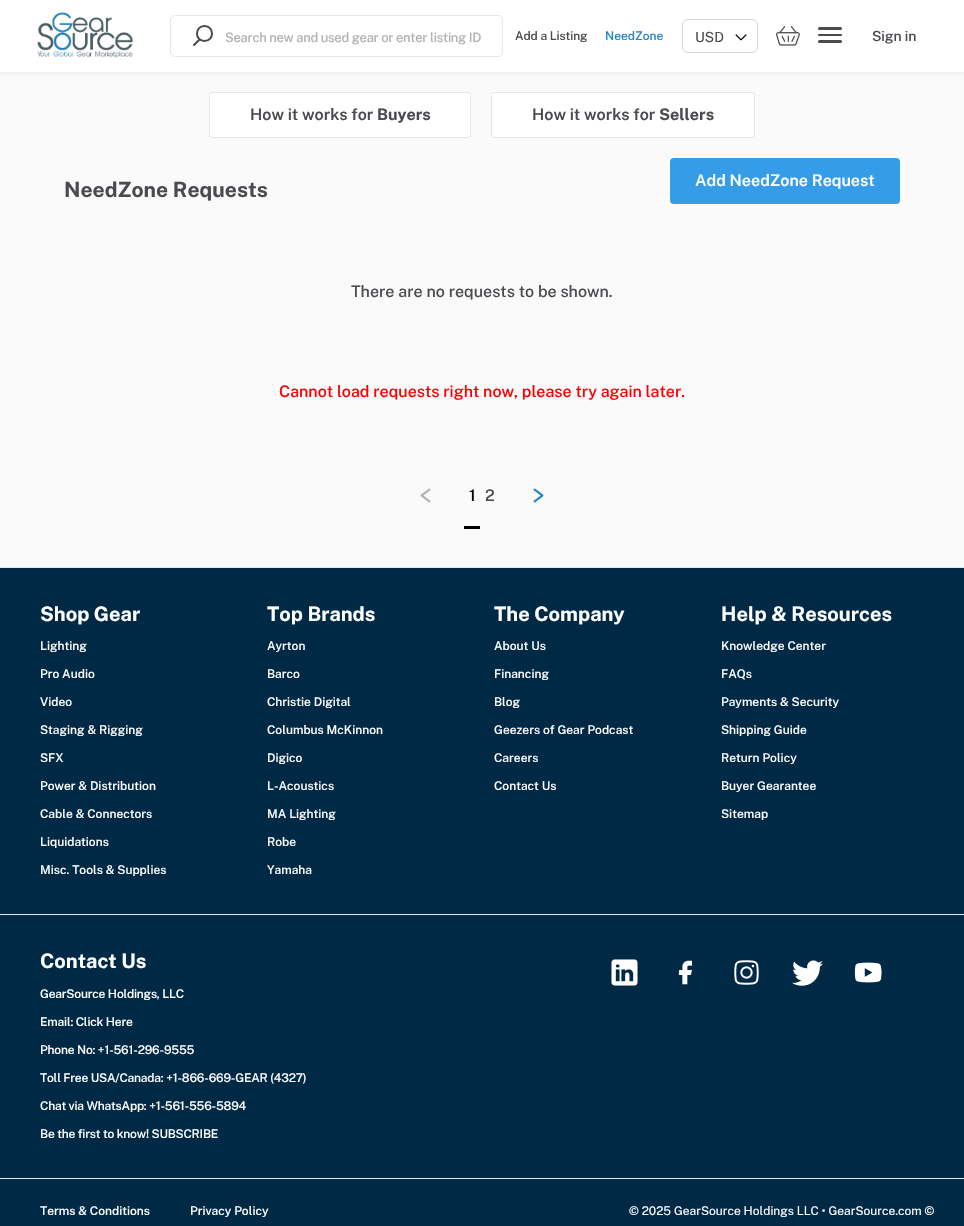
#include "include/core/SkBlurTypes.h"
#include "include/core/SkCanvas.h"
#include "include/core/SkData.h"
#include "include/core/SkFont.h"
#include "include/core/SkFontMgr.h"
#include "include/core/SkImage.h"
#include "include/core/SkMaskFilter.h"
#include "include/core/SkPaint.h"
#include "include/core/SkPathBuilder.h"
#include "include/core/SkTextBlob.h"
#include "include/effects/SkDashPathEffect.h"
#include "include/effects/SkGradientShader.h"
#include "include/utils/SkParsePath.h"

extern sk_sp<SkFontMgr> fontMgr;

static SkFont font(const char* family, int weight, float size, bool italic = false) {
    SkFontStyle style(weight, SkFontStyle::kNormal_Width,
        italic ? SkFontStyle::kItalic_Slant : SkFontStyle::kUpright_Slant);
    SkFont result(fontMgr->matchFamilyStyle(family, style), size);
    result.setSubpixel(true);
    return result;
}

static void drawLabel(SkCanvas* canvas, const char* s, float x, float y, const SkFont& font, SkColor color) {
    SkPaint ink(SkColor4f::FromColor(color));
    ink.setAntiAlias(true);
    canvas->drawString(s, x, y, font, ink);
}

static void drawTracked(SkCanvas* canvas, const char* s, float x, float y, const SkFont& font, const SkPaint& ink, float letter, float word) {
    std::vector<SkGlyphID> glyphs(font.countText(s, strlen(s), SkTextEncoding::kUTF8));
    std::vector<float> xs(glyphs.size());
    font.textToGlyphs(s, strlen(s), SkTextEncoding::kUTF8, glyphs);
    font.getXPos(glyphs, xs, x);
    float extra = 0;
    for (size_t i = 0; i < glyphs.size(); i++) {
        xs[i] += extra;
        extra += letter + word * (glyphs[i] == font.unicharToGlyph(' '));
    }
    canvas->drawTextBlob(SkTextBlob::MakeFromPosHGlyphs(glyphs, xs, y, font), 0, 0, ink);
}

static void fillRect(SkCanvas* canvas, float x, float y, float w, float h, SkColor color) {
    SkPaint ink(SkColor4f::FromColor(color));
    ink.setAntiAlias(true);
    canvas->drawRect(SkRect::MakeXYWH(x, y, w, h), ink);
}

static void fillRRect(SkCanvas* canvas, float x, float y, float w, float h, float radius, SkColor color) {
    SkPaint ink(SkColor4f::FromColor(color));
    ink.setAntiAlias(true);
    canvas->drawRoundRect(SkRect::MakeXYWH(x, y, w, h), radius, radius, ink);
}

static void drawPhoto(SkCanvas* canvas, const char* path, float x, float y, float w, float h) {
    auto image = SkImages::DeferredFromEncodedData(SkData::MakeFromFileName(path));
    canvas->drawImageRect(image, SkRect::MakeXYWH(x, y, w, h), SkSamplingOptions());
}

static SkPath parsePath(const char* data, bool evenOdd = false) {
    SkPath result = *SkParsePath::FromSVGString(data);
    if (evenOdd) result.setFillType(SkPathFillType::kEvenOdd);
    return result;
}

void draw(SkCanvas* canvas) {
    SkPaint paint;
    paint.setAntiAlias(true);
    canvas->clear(0xFFFAFAFA);
    paint.setColor(0x0D000000);
    paint.setMaskFilter(SkMaskFilter::MakeBlur(kNormal_SkBlurStyle, 2));
    canvas->drawRect(SkRect::MakeXYWH(0, 2, 964, 72), paint);
    paint.setMaskFilter(nullptr);
    fillRect(canvas, 0, 0, 964, 72, 0xFFFFFFFF);
    drawPhoto(canvas, "assets/img1.png", 37, 12, 97, 46);
    paint.setStroke(true);
    paint.setStrokeWidth(1);
    paint.setColor(0xFFE6E6E6);
    canvas->drawRoundRect(SkRect::MakeXYWH(170.5f, 15.5f, 332, 41), 4.5f, 4.5f, paint);
    paint.setStrokeWidth(2);
    paint.setStrokeCap(SkPaint::kRound_Cap);
    paint.setStrokeJoin(SkPaint::kRound_Join);
    paint.setColor(0xFF4A4A4A);
    canvas->drawPath(parsePath("M199 40L194 45M204.5 26C194.5 26 194.5 41 204.5 41C214.5 41 214.5 26 204.5 26Z"), paint);
    SkFont font1 = font("Public Sans", 500, 13);
    paint.setStroke(false);
    paint.setColor(0xFFB2B2B2);
    drawTracked(canvas, "Search new and used gear or enter listing ID", 225, 42, font1, paint, -0.3f, 0);
    SkFont font2 = font("Public Sans", 500, 12);
    paint.setColor(0xFF4A4A4F);
    drawTracked(canvas, "Add a Listing", 515, 40, font2, paint, -0.1f, 0);
    drawLabel(canvas, "NeedZone", 605, 40, font2, 0xFF2483BF);
    drawPhoto(canvas, "assets/img2.png", 735, 34, 12, 7);
    paint.setStroke(true);
    paint.setStrokeWidth(1);
    paint.setStrokeCap(SkPaint::kButt_Cap);
    paint.setStrokeJoin(SkPaint::kMiter_Join);
    paint.setColor(0xFFD2D7E2);
    canvas->drawRoundRect(SkRect::MakeXYWH(682.5f, 19.5f, 75, 33), 5.5f, 5.5f, paint);
    SkFont font3 = font("Public Sans", 400, 14);
    drawLabel(canvas, "USD", 695, 42, font3, 0xFF4A4A4F);
    drawPhoto(canvas, "assets/img3.png", 776, 26, 24, 20);
    fillRRect(canvas, 818, 27, 24, 3, 1.5f, 0xFF4A4A4F);
    fillRRect(canvas, 818, 34, 24, 2, 1, 0xFF4A4A4F);
    fillRRect(canvas, 818, 40, 24, 3, 1.5f, 0xFF4A4A4F);
    SkFont font4 = font("Public Sans", 500, 14);
    paint.setStroke(false);
    paint.setColor(0xFF4A4A4F);
    drawTracked(canvas, "Sign in", 872, 41, font4, paint, -0.1f, 0);
    paint.setColor(0xFFFFFFFF);
    canvas->drawRoundRect(SkRect::MakeXYWH(209.5f, 92.5f, 261, 45), 2.5f, 2.5f, paint);
    paint.setStroke(true);
    paint.setColor(0xFFE7E7E7);
    canvas->drawRoundRect(SkRect::MakeXYWH(209.5f, 92.5f, 261, 45), 2.5f, 2.5f, paint);
    SkFont font5 = font("Public Sans", 600, 16);
    drawLabel(canvas, "How it works for", 250, 120, font5, 0xFF4A4A4F);
    SkFont font6 = font("Public Sans", 700, 16);
    drawLabel(canvas, "Buyers", 377, 120, font6, 0xFF4A4A4F);
    paint.setStroke(false);
    paint.setColor(0xFFFFFFFF);
    canvas->drawRoundRect(SkRect::MakeXYWH(491.5f, 92.5f, 263, 45), 2.5f, 2.5f, paint);
    paint.setStroke(true);
    paint.setColor(0xFFE7E7E7);
    canvas->drawRoundRect(SkRect::MakeXYWH(491.5f, 92.5f, 263, 45), 2.5f, 2.5f, paint);
    drawLabel(canvas, "How it works for", 532, 120, font5, 0xFF4A4A4F);
    drawLabel(canvas, "Sellers", 659, 120, font6, 0xFF4A4A4F);
    SkFont font7 = font("Public Sans", 700, 21);
    drawLabel(canvas, "NeedZone Requests", 64, 197, font7, 0xFF4A4A4F);
    fillRRect(canvas, 670, 158, 230, 46, 4, 0xFF359DE8);
    drawLabel(canvas, "Add NeedZone Request", 695, 186, font5, 0xFFFFFFFF);
    SkFont font8 = font("Public Sans", 500, 16);
    drawLabel(canvas, "There are no requests to be shown.", 351, 297, font8, 0xFF4A4A4F);
    drawLabel(canvas, "Cannot load requests right now, please try again later.", 279, 397, font8, 0xFFFF0000);
    drawPhoto(canvas, "assets/img4.png", 420, 488, 11, 15);
    fillRect(canvas, 464, 526, 16, 3, 0xFF000000);
    drawLabel(canvas, "1", 469, 501, font8, 0xFF000000);
    drawLabel(canvas, "2", 485, 501, font8, 0xFF4A4A4F);
    drawPhoto(canvas, "assets/img5.png", 533, 488, 11, 15);
    fillRect(canvas, 0, 567, 964, 1, 0xFFE6E6E6);
    fillRect(canvas, 0, 568, 964, 658, 0xFF002946);
    fillRect(canvas, 0, 914, 964, 1, 0xFFE6E6E6);
    SkFont font9 = font("Public Sans", 700, 20);
    drawLabel(canvas, "Shop Gear", 40, 621, font9, 0xFFFFFFFF);
    drawLabel(canvas, "Lighting", 40, 650, font2, 0xFFFFFFFF);
    drawLabel(canvas, "Pro Audio", 40, 678, font2, 0xFFFFFFFF);
    drawLabel(canvas, "Video", 40, 706, font2, 0xFFFFFFFF);
    drawLabel(canvas, "Staging & Rigging", 40, 734, font2, 0xFFFFFFFF);
    drawLabel(canvas, "SFX", 40, 762, font2, 0xFFFFFFFF);
    drawLabel(canvas, "Power & Distribution", 40, 790, font2, 0xFFFFFFFF);
    drawLabel(canvas, "Cable & Connectors", 40, 818, font2, 0xFFFFFFFF);
    drawLabel(canvas, "Liquidations", 40, 846, font2, 0xFFFFFFFF);
    drawLabel(canvas, "Misc. Tools & Supplies", 40, 874, font2, 0xFFFFFFFF);
    drawLabel(canvas, "Top Brands", 267, 621, font9, 0xFFFFFFFF);
    drawLabel(canvas, "Ayrton", 267, 650, font2, 0xFFFFFFFF);
    drawLabel(canvas, "Barco", 267, 678, font2, 0xFFFFFFFF);
    drawLabel(canvas, "Christie Digital", 267, 706, font2, 0xFFFFFFFF);
    drawLabel(canvas, "Columbus McKinnon", 267, 734, font2, 0xFFFFFFFF);
    drawLabel(canvas, "Digico", 267, 762, font2, 0xFFFFFFFF);
    drawLabel(canvas, "L-Acoustics", 267, 790, font2, 0xFFFFFFFF);
    drawLabel(canvas, "MA Lighting", 267, 818, font2, 0xFFFFFFFF);
    drawLabel(canvas, "Robe", 267, 846, font2, 0xFFFFFFFF);
    drawLabel(canvas, "Yamaha", 267, 874, font2, 0xFFFFFFFF);
    drawLabel(canvas, "The Company", 494, 621, font9, 0xFFFFFFFF);
    drawLabel(canvas, "About Us", 494, 650, font2, 0xFFFFFFFF);
    drawLabel(canvas, "Financing", 494, 678, font2, 0xFFFFFFFF);
    drawLabel(canvas, "Blog", 494, 706, font2, 0xFFFFFFFF);
    drawLabel(canvas, "Geezers of Gear Podcast", 494, 734, font2, 0xFFFFFFFF);
    drawLabel(canvas, "Careers", 494, 762, font2, 0xFFFFFFFF);
    drawLabel(canvas, "Contact Us", 494, 790, font2, 0xFFFFFFFF);
    drawLabel(canvas, "Help & Resources", 721, 621, font9, 0xFFFFFFFF);
    drawLabel(canvas, "Knowledge Center", 721, 650, font2, 0xFFFFFFFF);
    drawLabel(canvas, "FAQs", 721, 678, font2, 0xFFFFFFFF);
    drawLabel(canvas, "Payments & Security", 721, 706, font2, 0xFFFFFFFF);
    drawLabel(canvas, "Shipping Guide", 721, 734, font2, 0xFFFFFFFF);
    drawLabel(canvas, "Return Policy", 721, 762, font2, 0xFFFFFFFF);
    drawLabel(canvas, "Buyer Gearantee", 721, 790, font2, 0xFFFFFFFF);
    drawLabel(canvas, "Sitemap", 721, 818, font2, 0xFFFFFFFF);
    drawLabel(canvas, "Contact Us", 40, 968, font9, 0xFFFFFFFF);
    paint.setStroke(false);
    paint.setColor(0xFFFFFFFF);
    drawTracked(canvas, "GearSource Holdings, LLC", 40, 998, font2, paint, -0.2f, 0);
    drawTracked(canvas, "Email: Click Here", 40, 1026, font2, paint, -0.2f, 0);
    drawTracked(canvas, "Phone No: +1-561-296-9555", 40, 1054, font2, paint, -0.2f, 0);
    drawTracked(canvas, "Toll Free USA/Canada: +1-866-669-GEAR (4327)", 40, 1082, font2, paint, -0.2f, 0);
    drawTracked(canvas, "Chat via WhatsApp: +1-561-556-5894", 40, 1110, font2, paint, -0.2f, 0);
    drawTracked(canvas, "Be the first to know! SUBSCRIBE", 40, 1138, font2, paint, -0.2f, 0);
    drawPhoto(canvas, "assets/img6.png", 611, 959, 27, 27);
    drawPhoto(canvas, "assets/img7.png", 678, 960, 14, 25);
    drawPhoto(canvas, "assets/img8.png", 734, 960, 25, 25);
    drawPhoto(canvas, "assets/img9.png", 792, 960, 31, 26);
    drawPhoto(canvas, "assets/img10.png", 854, 962, 28, 21);
    fillRect(canvas, 0, 1178, 964, 1, 0xFFE6E6E6);
    drawLabel(canvas, "Terms & Conditions", 40, 1215, font2, 0xFFFFFFFF);
    drawLabel(canvas, "Privacy Policy", 190, 1215, font2, 0xFFFFFFFF);
    SkFont font10 = font("Public Sans", 400, 12);
    drawLabel(canvas, "© 2025 GearSource Holdings LLC • GearSource.com ©", 629, 1215, font10, 0xFFFFFFFF);
}
